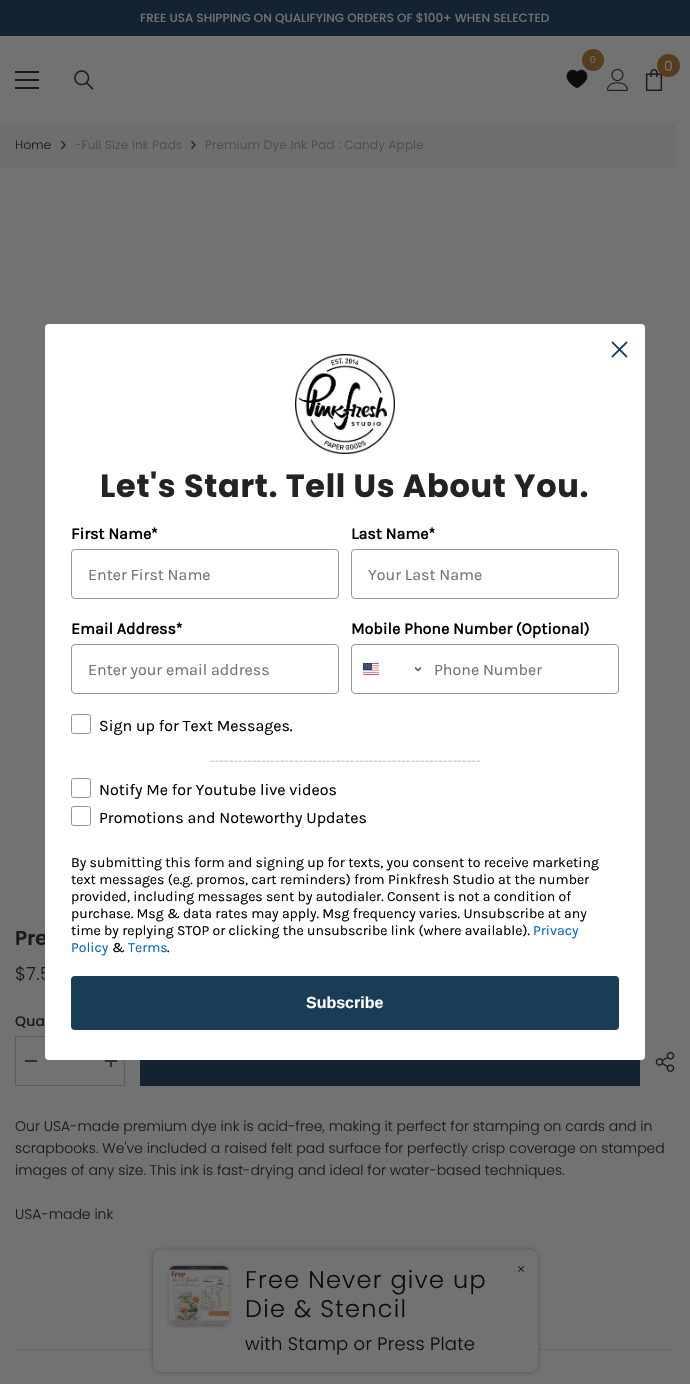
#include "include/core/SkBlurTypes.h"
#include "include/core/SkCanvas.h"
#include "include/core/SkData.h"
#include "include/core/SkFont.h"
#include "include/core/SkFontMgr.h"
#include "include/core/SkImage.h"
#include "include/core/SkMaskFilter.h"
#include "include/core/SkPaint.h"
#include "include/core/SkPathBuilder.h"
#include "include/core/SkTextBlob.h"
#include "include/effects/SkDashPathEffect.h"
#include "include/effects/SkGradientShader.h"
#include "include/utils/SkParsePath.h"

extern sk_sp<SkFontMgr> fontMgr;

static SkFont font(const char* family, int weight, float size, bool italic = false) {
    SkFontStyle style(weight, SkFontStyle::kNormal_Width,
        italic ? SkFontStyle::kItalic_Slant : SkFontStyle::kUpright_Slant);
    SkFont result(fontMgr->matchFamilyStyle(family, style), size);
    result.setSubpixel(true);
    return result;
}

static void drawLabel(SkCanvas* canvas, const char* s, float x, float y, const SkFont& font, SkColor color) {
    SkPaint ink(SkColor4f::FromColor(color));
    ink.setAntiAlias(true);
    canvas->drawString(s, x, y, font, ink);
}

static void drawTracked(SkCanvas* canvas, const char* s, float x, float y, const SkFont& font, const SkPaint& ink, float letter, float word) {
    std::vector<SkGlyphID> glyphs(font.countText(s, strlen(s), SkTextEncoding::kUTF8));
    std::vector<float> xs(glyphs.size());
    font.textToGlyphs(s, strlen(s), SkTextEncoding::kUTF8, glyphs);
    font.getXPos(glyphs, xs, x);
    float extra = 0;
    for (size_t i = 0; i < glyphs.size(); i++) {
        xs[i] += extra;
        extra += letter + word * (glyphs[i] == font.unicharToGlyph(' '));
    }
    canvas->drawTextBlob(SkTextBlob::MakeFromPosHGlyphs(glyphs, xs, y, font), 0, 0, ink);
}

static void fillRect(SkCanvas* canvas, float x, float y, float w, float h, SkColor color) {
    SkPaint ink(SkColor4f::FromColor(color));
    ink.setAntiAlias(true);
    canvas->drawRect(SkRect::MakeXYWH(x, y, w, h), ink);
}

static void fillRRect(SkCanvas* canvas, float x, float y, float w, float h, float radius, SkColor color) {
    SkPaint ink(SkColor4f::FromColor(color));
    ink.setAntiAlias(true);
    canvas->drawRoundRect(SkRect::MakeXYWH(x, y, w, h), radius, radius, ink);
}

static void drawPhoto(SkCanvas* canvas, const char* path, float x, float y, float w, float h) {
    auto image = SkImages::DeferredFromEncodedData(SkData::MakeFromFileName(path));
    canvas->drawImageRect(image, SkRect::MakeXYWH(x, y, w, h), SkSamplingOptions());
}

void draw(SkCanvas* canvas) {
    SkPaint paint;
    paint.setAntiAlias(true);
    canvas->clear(0xFF727272);
    fillRect(canvas, 0, 0, 690, 36, 0xFF142331);
    SkFont font1 = font("Poppins", 500, 12);
    drawLabel(canvas, "FREE USA SHIPPING ON QUALIFYING ORDERS OF $100+ WHEN SELECTED", 140, 22, font1, 0xFF727272);
    drawPhoto(canvas, "assets/img1.png", 566, 69, 22, 20);
    paint.setColor(0xFF563D1E);
    canvas->drawCircle(593, 60, 11, paint);
    SkFont font2 = font("Liberation Sans", 400, 10);
    drawLabel(canvas, "0", 590, 63, font2, 0xFF727272);
    drawPhoto(canvas, "assets/img2.png", 607, 69, 21, 22);
    drawPhoto(canvas, "assets/img3.png", 645, 69, 18, 22);
    canvas->drawCircle(668.5f, 65.5f, 11.5f, paint);
    SkFont font3 = font("Poppins", 400, 14);
    drawLabel(canvas, "0", 664, 71, font3, 0xFF727272);
    fillRect(canvas, 15, 79, 24, 2, 0xFF1A1A1A);
    fillRect(canvas, 15, 71, 24, 2, 0xFF1A1A1A);
    fillRect(canvas, 15, 87, 24, 2, 0xFF1A1A1A);
    drawPhoto(canvas, "assets/img4.png", 74, 70, 20, 20);
    fillRect(canvas, 0, 124, 675, 45, 0xFF6E6E6E);
    SkFont font4 = font("Poppins", 300, 12);
    paint.setColor(0xFF1A1A1A);
    drawTracked(canvas, "Home", 15, 149, font4, paint, 0.25f, 0);
    drawPhoto(canvas, "assets/img5.png", 61, 140, 5, 10);
    paint.setColor(0xFF494949);
    drawTracked(canvas, "-Full Size Ink Pads", 75, 149, font4, paint, 0.25f, 0);
    drawPhoto(canvas, "assets/img5.png", 191, 140, 5, 10);
    drawTracked(canvas, "Premium Dye Ink Pad : Candy Apple", 205, 149, font4, paint, 0.25f, 0);
    SkFont font5 = font("Poppins", 600, 20);
    drawLabel(canvas, "Pre", 15, 945, font5, 0xFF1A1A1A);
    SkFont font6 = font("Poppins", 300, 18);
    paint.setColor(0xFF1A1A1A);
    drawTracked(canvas, "$7.5", 15, 980, font6, paint, 0.5f, 0);
    SkFont font7 = font("Poppins", 500, 14);
    drawTracked(canvas, "Qua", 15, 1026, font7, paint, 0.25f, 0);
    paint.setStroke(true);
    paint.setStrokeWidth(1);
    paint.setColor(0xFF5C5C5C);
    canvas->drawRect(SkRect::MakeXYWH(15.5f, 1036.5f, 109, 49), paint);
    fillRect(canvas, 25, 1060, 12, 2, 0xFF303030);
    fillRect(canvas, 105, 1060, 12, 2, 0xFF303030);
    fillRect(canvas, 110, 1055, 2, 12, 0xFF303030);
    fillRect(canvas, 140, 1060, 500, 26, 0xFF142331);
    drawPhoto(canvas, "assets/img6.png", 655, 1052, 20, 20);
    SkFont font8 = font("Poppins", 300, 14);
    drawLabel(canvas, "Our USA-made premium dye ink is acid-free, making it perfect for stamping on cards and in", 15, 1131, font8, 0xFF1A1A1A);
    drawLabel(canvas, "scrapbooks. We've included a raised felt pad surface for perfectly crisp coverage on stamped", 15, 1153, font8, 0xFF1A1A1A);
    drawLabel(canvas, "images of any size. This ink is fast-drying and ideal for water-based techniques.", 15, 1175, font8, 0xFF1A1A1A);
    drawLabel(canvas, "USA-made ink", 15, 1219, font8, 0xFF1A1A1A);
    fillRect(canvas, 15, 1349, 660, 1, 0xFF696969);
    fillRRect(canvas, 45, 324, 600, 736, 4, 0xFFFFFFFF);
    drawPhoto(canvas, "assets/img7.png", 611, 341, 17, 17);
    drawPhoto(canvas, "assets/img8.png", 295, 354, 100, 100);
    SkFont font9 = font("Poppins", 700, 32);
    paint.setStroke(false);
    paint.setColor(0xFF232323);
    drawTracked(canvas, "Let's Start. Tell Us About You.", 100, 497, font9, paint, 0.7f, 0);
    SkFont font10 = font("Karla", 700, 16);
    drawLabel(canvas, "First Name*", 71, 539, font10, 0xFF000000);
    paint.setStroke(true);
    paint.setColor(0xFF949596);
    canvas->drawRoundRect(SkRect::MakeXYWH(71.5f, 549.5f, 267, 49), 3.5f, 3.5f, paint);
    SkFont font11 = font("Karla", 400, 16);
    drawLabel(canvas, "Enter First Name", 88, 580, font11, 0xFF727272);
    drawLabel(canvas, "Last Name*", 351, 539, font10, 0xFF000000);
    canvas->drawRoundRect(SkRect::MakeXYWH(351.5f, 549.5f, 267, 49), 3.5f, 3.5f, paint);
    drawLabel(canvas, "Your Last Name", 368, 580, font11, 0xFF727272);
    drawLabel(canvas, "Email Address*", 71, 634, font10, 0xFF000000);
    canvas->drawRoundRect(SkRect::MakeXYWH(71.5f, 644.5f, 267, 49), 3.5f, 3.5f, paint);
    drawLabel(canvas, "Enter your email address", 88, 675, font11, 0xFF727272);
    drawLabel(canvas, "Mobile Phone Number (Optional)", 351, 634, font10, 0xFF000000);
    canvas->drawRoundRect(SkRect::MakeXYWH(351.5f, 644.5f, 267, 49), 3.5f, 3.5f, paint);
    drawPhoto(canvas, "assets/img9.png", 363, 663, 16, 12);
    drawPhoto(canvas, "assets/img10.png", 414, 667, 8, 5);
    drawLabel(canvas, "Phone Number", 434, 675, font11, 0xFF727272);
    canvas->drawRoundRect(SkRect::MakeXYWH(71.5f, 714.5f, 19, 19), 2, 2, paint);
    drawLabel(canvas, "Sign up for Text Messages.", 99, 731, font11, 0xFF000000);
    SkFont font12 = font("Liberation Sans", 400, 14);
    drawLabel(canvas, "----------------------------------------------------------", 210, 765, font12, 0xFFCACACA);
    canvas->drawRoundRect(SkRect::MakeXYWH(71.5f, 778.5f, 19, 19), 2, 2, paint);
    drawLabel(canvas, "Notify Me for Youtube live videos", 99, 795, font11, 0xFF000000);
    canvas->drawRoundRect(SkRect::MakeXYWH(71.5f, 806.5f, 19, 19), 2, 2, paint);
    drawLabel(canvas, "Promotions and Noteworthy Updates", 99, 823, font11, 0xFF000000);
    SkFont font13 = font("Karla", 400, 14);
    drawLabel(canvas, "By submitting this form and signing up for texts, you consent to receive marketing", 71, 867, font13, 0xFF000000);
    drawLabel(canvas, "text messages (e.g. promos, cart reminders) from Pinkfresh Studio at the number", 71, 884, font13, 0xFF000000);
    drawLabel(canvas, "provided, including messages sent by autodialer. Consent is not a condition of", 71, 901, font13, 0xFF000000);
    drawLabel(canvas, "purchase. Msg & data rates may apply. Msg frequency varies. Unsubscribe at any", 71, 918, font13, 0xFF000000);
    drawLabel(canvas, "time by replying STOP or clicking the unsubscribe link (where available).", 71, 935, font13, 0xFF000000);
    drawLabel(canvas, "Privacy", 533, 935, font13, 0xFF0066CC);
    drawLabel(canvas, "Policy", 71, 952, font13, 0xFF0066CC);
    drawLabel(canvas, "&", 112, 952, font13, 0xFF000000);
    drawLabel(canvas, "Terms", 128, 952, font13, 0xFF0066CC);
    drawLabel(canvas, ".", 167, 952, font13, 0xFF000000);
    fillRRect(canvas, 71, 976, 548, 54, 4, 0xFF193D57);
    SkFont font14 = font("Liberation Sans", 700, 16);
    drawLabel(canvas, "Subscribe", 306, 1008, font14, 0xFFFFFFFF);
    paint.setStroke(false);
    paint.setColor(0xFF505050);
    paint.setMaskFilter(SkMaskFilter::MakeBlur(kNormal_SkBlurStyle, 2.5f));
    canvas->drawRoundRect(SkRect::MakeXYWH(153, 1250, 385, 122), 8, 8, paint);
    paint.setMaskFilter(nullptr);
    fillRRect(canvas, 153, 1250, 385, 122, 8, 0xFF727272);
    paint.setColor(0x4A343A40);
    paint.setMaskFilter(SkMaskFilter::MakeBlur(kNormal_SkBlurStyle, 2));
    canvas->drawRoundRect(SkRect::MakeXYWH(168, 1265, 62, 62), 7, 7, paint);
    paint.setMaskFilter(nullptr);
    drawPhoto(canvas, "assets/img11.png", 169, 1266, 60, 60);
    SkFont font15 = font("Poppins", 300, 24);
    paint.setColor(0xFF0C0C0C);
    drawTracked(canvas, "Free Never give up", 245, 1288, font15, paint, 1.25f, 0);
    drawTracked(canvas, "Die & Stencil", 245, 1317, font15, paint, 1.25f, 0);
    drawTracked(canvas, "with Stamp or Press Plate", 245, 1350, font6, paint, 0.25f, 0);
    drawPhoto(canvas, "assets/img12.png", 518, 1266, 6, 6);
}
